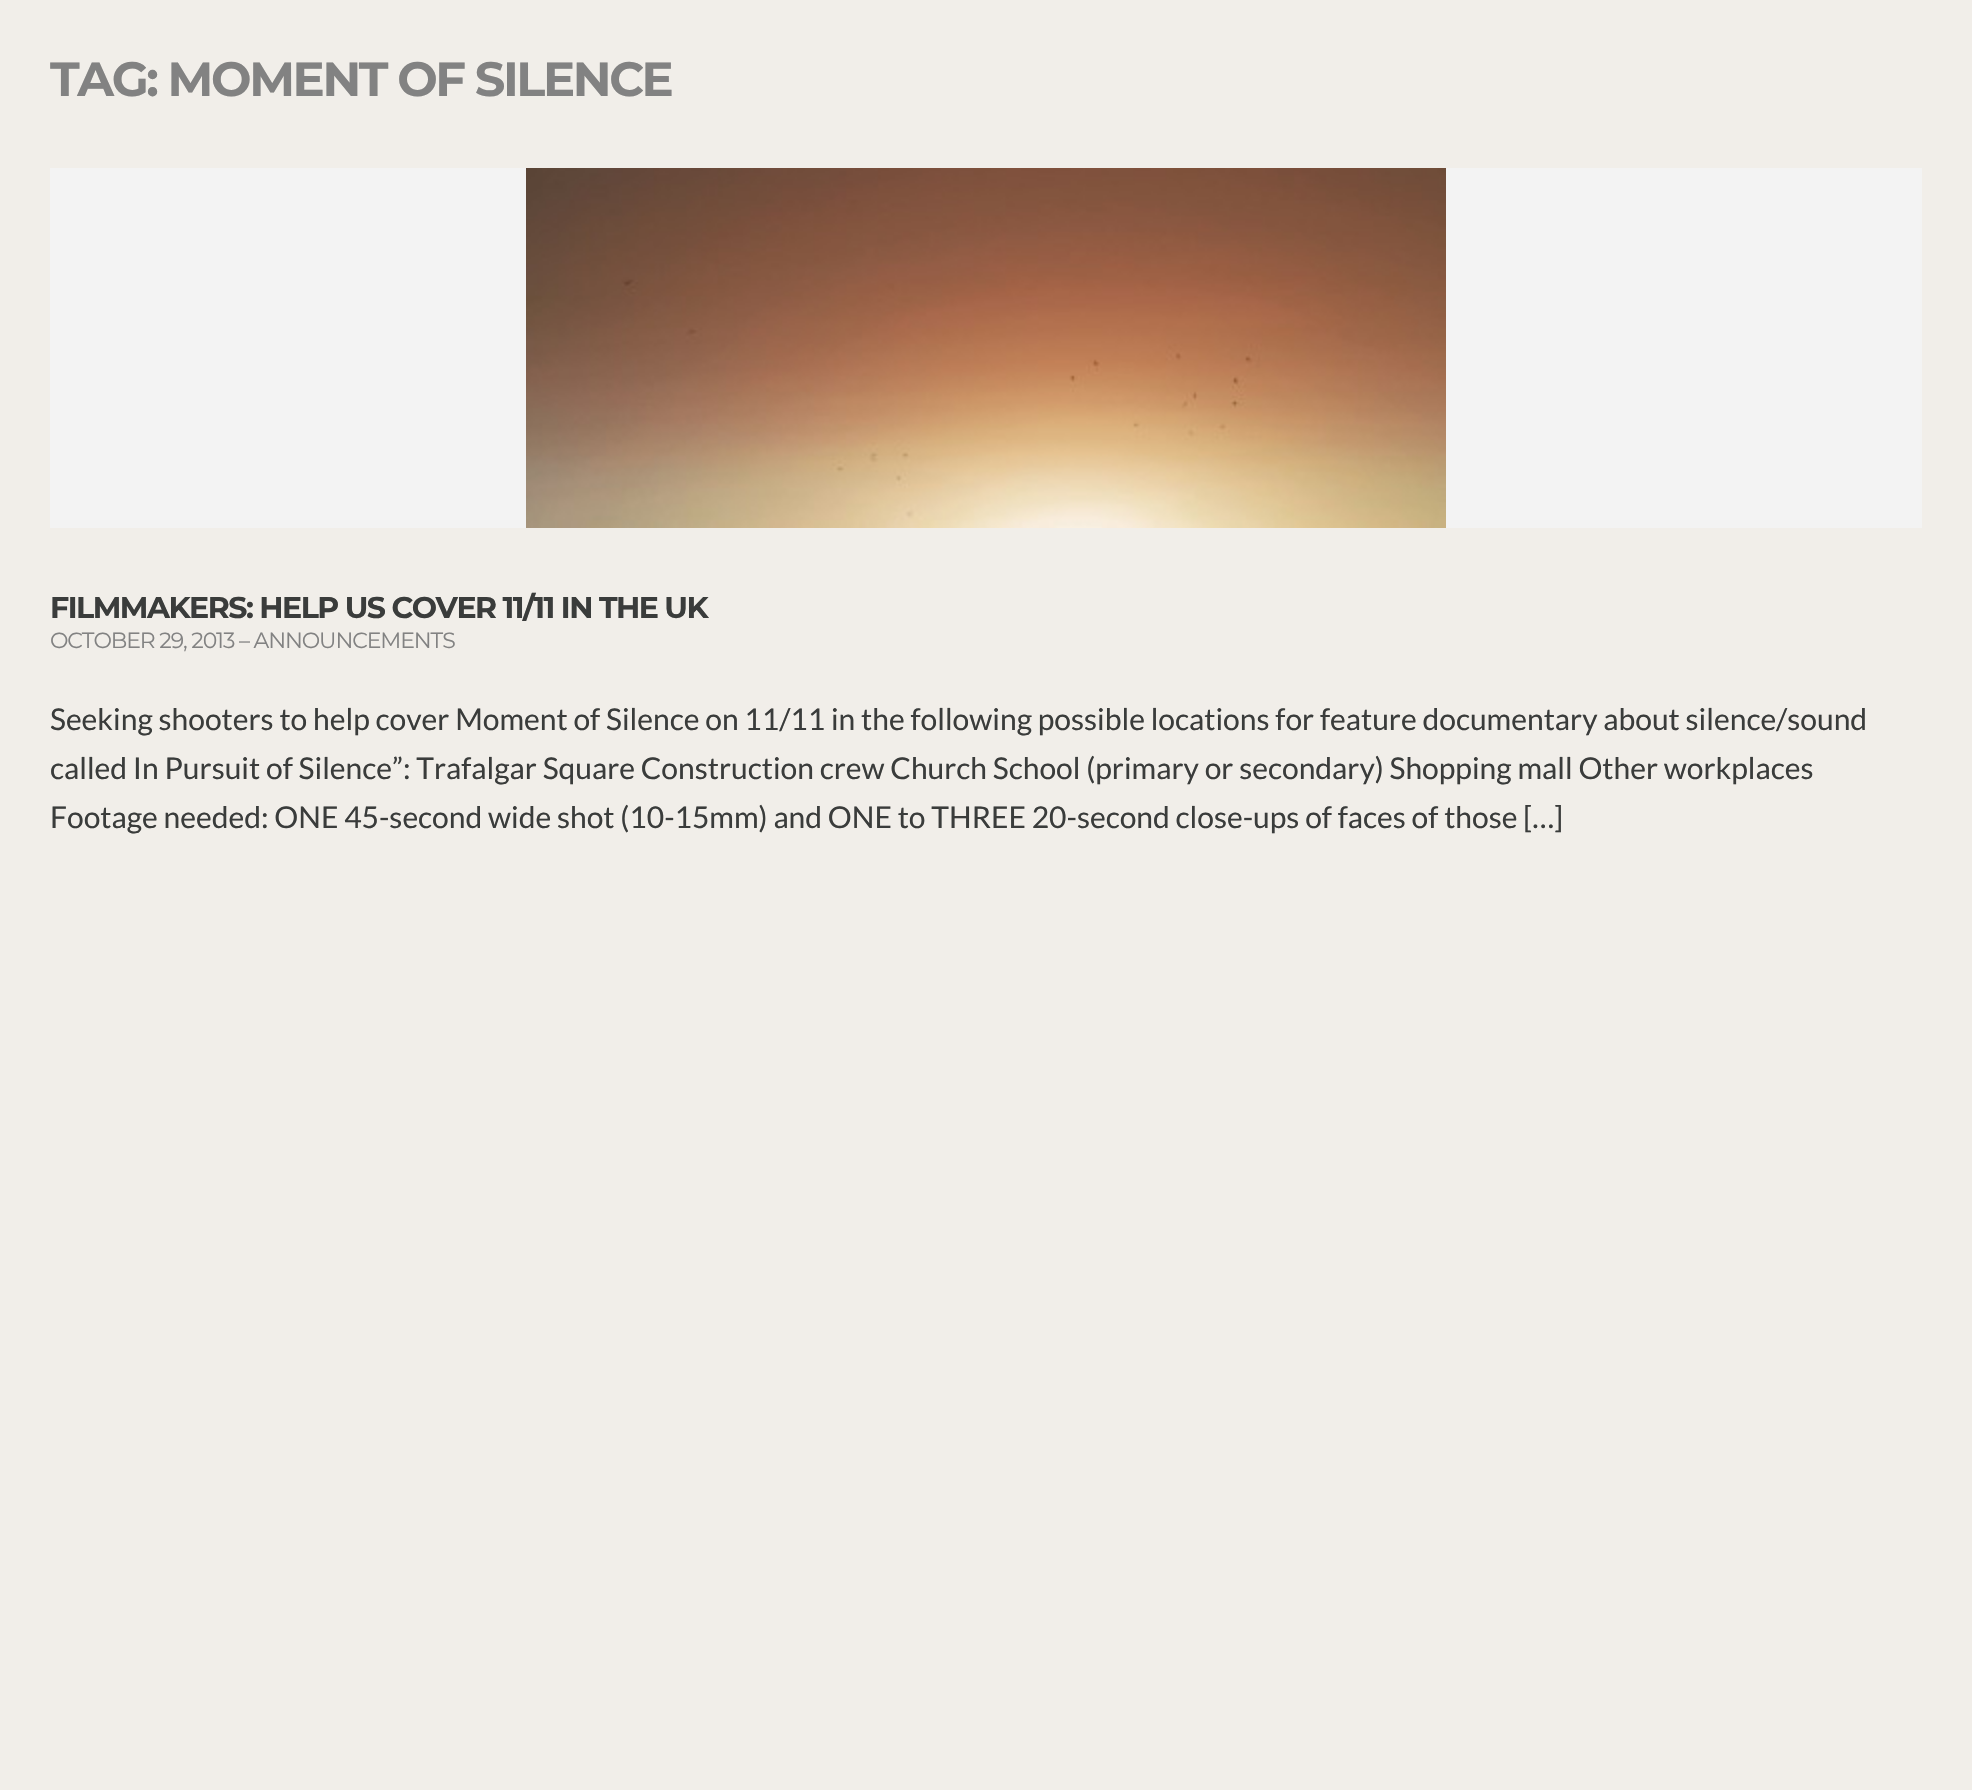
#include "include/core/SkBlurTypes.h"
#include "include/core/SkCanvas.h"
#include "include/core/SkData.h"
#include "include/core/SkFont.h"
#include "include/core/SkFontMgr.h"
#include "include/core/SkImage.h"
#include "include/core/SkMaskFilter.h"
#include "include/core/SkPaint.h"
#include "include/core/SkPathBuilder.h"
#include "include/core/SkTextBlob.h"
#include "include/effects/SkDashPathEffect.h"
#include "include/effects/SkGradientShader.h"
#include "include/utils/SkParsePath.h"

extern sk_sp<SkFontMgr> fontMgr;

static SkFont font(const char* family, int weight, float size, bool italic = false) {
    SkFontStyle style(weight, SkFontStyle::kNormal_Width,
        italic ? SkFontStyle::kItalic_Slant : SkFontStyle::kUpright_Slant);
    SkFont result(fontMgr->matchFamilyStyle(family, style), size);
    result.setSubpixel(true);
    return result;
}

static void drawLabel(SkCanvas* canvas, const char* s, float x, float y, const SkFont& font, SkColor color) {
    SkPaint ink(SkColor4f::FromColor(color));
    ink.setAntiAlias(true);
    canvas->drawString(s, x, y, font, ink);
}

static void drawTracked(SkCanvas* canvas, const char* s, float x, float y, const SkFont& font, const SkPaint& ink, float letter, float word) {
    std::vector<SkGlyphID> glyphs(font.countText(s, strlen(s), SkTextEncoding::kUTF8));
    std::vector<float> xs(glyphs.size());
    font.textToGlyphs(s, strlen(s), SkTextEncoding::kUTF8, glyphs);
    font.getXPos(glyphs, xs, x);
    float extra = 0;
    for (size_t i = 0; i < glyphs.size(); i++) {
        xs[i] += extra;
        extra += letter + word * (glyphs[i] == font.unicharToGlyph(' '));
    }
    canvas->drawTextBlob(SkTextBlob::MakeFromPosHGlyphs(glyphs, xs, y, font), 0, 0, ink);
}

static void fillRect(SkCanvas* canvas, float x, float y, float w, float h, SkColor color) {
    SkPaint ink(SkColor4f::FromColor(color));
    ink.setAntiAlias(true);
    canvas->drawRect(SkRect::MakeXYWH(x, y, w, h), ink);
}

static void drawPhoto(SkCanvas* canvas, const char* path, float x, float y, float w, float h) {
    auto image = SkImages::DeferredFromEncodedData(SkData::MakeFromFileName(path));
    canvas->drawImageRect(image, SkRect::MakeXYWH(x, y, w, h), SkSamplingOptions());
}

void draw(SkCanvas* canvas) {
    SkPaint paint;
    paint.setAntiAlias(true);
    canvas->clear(0xFFF1EEE9);
    SkFont font1 = font("Montserrat", 700, 48);
    paint.setColor(0xFF828282);
    drawTracked(canvas, "TAG: MOMENT OF SILENCE", 50, 96, font1, paint, -2.4f, 0);
    fillRect(canvas, 50, 168, 1872, 360, 0xFFF3F3F3);
    drawPhoto(canvas, "assets/img1.png", 526, 168, 920, 360);
    SkFont font2 = font("Montserrat", 700, 30);
    paint.setColor(0xFF3A3C3B);
    drawTracked(canvas, "FILMMAKERS: HELP US COVER 11/11 IN THE UK", 50, 618, font2, paint, -1.5f, 0);
    SkFont font3 = font("Montserrat", 400, 22);
    paint.setColor(0xFF828282);
    drawTracked(canvas, "OCTOBER 29, 2013 – ANNOUNCEMENTS", 50, 648, font3, paint, -1.1f, 0);
    SkFont font4 = font("Lato", 400, 30);
    drawLabel(canvas, "Seeking shooters to help cover Moment of Silence on 11/11 in the following possible locations for feature documentary about silence/sound", 50, 730, font4, 0xFF3A3C3B);
    drawLabel(canvas, "called In Pursuit of Silence”: Trafalgar Square Construction crew Church School (primary or secondary) Shopping mall Other workplaces", 50, 779, font4, 0xFF3A3C3B);
    drawLabel(canvas, "Footage needed: ONE 45-second wide shot (10-15mm) and ONE to THREE 20-second close-ups of faces of those […]", 50, 828, font4, 0xFF3A3C3B);
}
